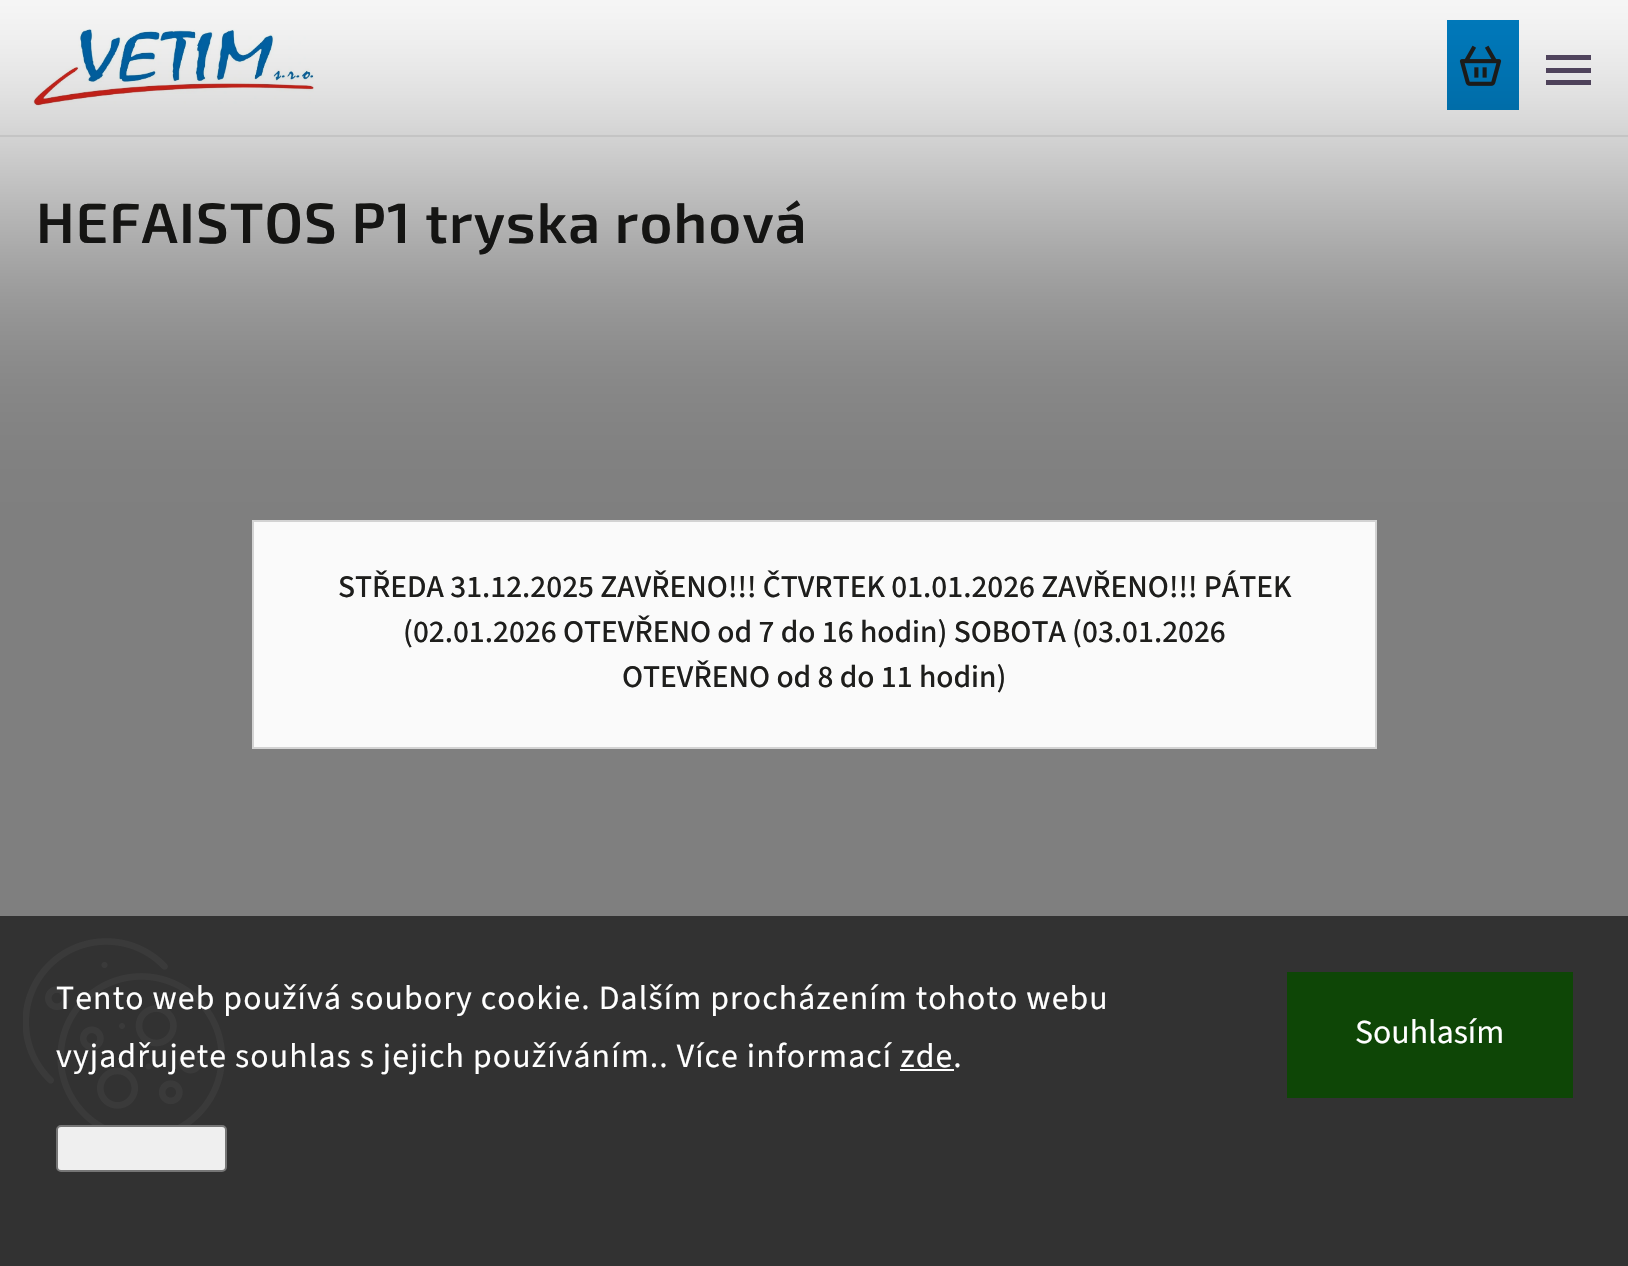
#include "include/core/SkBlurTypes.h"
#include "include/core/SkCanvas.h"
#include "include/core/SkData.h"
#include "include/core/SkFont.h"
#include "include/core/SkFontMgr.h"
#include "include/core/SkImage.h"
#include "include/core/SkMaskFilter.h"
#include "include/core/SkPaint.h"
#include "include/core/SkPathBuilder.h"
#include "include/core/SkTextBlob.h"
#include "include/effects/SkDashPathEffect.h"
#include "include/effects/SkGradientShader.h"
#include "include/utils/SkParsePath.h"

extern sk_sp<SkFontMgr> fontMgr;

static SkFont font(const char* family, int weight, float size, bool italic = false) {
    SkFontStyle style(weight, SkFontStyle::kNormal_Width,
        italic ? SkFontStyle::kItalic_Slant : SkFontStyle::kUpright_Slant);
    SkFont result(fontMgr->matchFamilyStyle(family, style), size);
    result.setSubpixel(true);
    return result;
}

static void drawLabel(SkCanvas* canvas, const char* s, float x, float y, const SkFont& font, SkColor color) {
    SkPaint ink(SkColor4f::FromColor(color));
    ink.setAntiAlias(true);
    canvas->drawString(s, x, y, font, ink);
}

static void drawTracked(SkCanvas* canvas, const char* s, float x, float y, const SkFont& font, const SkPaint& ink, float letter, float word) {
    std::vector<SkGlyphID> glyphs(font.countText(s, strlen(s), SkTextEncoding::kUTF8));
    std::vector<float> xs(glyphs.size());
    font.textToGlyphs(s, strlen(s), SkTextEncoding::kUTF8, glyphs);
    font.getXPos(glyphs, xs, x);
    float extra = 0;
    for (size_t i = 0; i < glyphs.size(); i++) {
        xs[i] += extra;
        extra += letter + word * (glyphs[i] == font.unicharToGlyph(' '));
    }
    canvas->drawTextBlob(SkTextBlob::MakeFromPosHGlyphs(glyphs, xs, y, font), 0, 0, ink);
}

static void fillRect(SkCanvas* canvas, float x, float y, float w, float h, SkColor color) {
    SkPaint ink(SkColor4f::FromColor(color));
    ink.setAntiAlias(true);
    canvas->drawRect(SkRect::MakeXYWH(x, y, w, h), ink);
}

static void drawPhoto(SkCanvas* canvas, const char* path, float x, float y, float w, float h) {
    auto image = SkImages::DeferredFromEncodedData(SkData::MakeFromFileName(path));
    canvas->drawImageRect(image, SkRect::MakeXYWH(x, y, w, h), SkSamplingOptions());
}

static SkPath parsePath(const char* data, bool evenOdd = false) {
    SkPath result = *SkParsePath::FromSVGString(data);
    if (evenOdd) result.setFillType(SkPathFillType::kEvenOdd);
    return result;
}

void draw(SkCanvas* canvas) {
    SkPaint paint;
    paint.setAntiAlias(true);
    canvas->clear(0xFFFFFFFF);
    fillRect(canvas, 0, 135, 1628, 2, 0xFFEDEDED);
    drawPhoto(canvas, "assets/img1.png", 33, 29, 281, 77);
    fillRect(canvas, 1447, 20, 72, 90, 0xFF007EC3);
    drawPhoto(canvas, "assets/img2.png", 1459, 45, 43, 41);
    paint.setColor(0xFF574A65);
    canvas->drawPath(parsePath("M1546 85H1591V80H1546ZM1546 73H1591V68H1546ZM1546 55V60H1591V55Z"), paint);
    SkFont font1 = font("Exo 2", 600, 56.75f);
    paint.setColor(0xFF1E1E1C);
    drawTracked(canvas, "HEFAISTOS P1 tryska rohová", 36, 243, font1, paint, 1.12f, 0);
    paint.setColor(0x80000000);
    paint.setMaskFilter(SkMaskFilter::MakeBlur(kNormal_SkBlurStyle, 180));
    canvas->drawRect(SkRect::MakeXYWH(-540, 191, 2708, 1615), paint);
    paint.setMaskFilter(nullptr);
    paint.setColor(0xF5FFFFFF);
    canvas->drawRect(SkRect::MakeXYWH(253, 521, 1123, 227), paint);
    paint.setStroke(true);
    paint.setStrokeWidth(2);
    paint.setColor(0xFFD3D3D3);
    canvas->drawRect(SkRect::MakeXYWH(253, 521, 1123, 227), paint);
    SkFont font2 = font("Source Sans 3", 500, 31.5f);
    drawLabel(canvas, "STŘEDA 31.12.2025 ZAVŘENO!!! ČTVRTEK 01.01.2026 ZAVŘENO!!! PÁTEK", 338, 597, font2, 0xFF1E1E1C);
    drawLabel(canvas, "(02.01.2026 OTEVŘENO od 7 do 16 hodin) SOBOTA (03.01.2026", 403, 642, font2, 0xFF1E1E1C);
    drawLabel(canvas, "OTEVŘENO od 8 do 11 hodin)", 622, 687, font2, 0xFF1E1E1C);
    fillRect(canvas, 0, 916, 1628, 350, 0xFF323232);
    drawPhoto(canvas, "assets/img3.png", 23, 938, 202, 187);
    SkFont font3 = font("Source Sans 3", 400, 33.75f);
    paint.setStroke(false);
    paint.setColor(0xFFFFFFFF);
    drawTracked(canvas, "Tento web používá soubory cookie. Dalším procházením tohoto webu", 56, 1009, font3, paint, 1.12f, 0);
    drawTracked(canvas, "vyjadřujete souhlas s jejich používáním.. Více informací zde.", 56, 1067, font3, paint, 1.12f, 0);
    fillRect(canvas, 900, 1069, 54, 2, 0xFFFFFFFF);
    paint.setColor(0xFFEFEFEF);
    canvas->drawRoundRect(SkRect::MakeXYWH(57, 1126, 169, 45), 4, 4, paint);
    paint.setStroke(true);
    paint.setColor(0xFF767676);
    canvas->drawRoundRect(SkRect::MakeXYWH(57, 1126, 169, 45), 4, 4, paint);
    fillRect(canvas, 1287, 972, 286, 126, 0xFF0E4606);
    drawLabel(canvas, "Souhlasím", 1355, 1043, font3, 0xFFFFFFFF);
}
